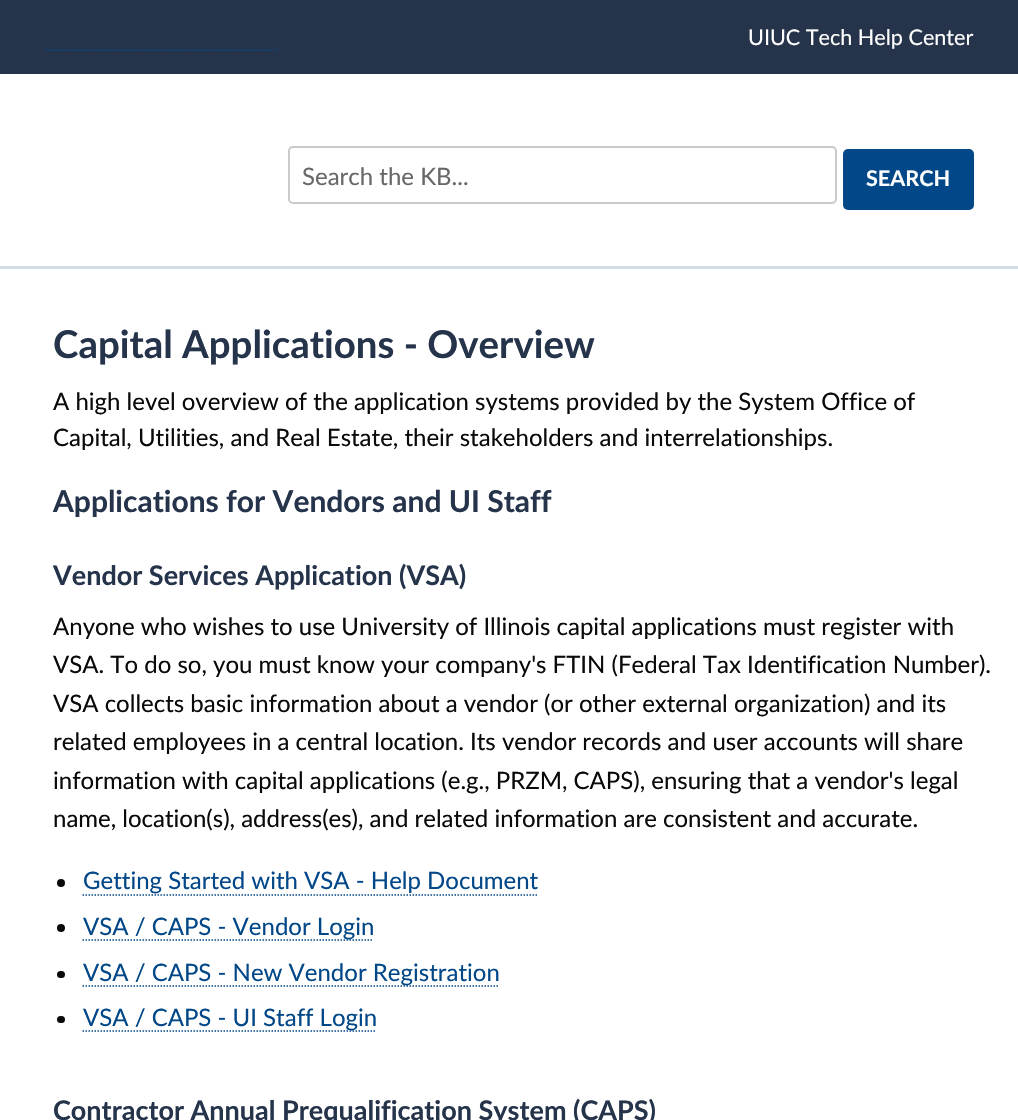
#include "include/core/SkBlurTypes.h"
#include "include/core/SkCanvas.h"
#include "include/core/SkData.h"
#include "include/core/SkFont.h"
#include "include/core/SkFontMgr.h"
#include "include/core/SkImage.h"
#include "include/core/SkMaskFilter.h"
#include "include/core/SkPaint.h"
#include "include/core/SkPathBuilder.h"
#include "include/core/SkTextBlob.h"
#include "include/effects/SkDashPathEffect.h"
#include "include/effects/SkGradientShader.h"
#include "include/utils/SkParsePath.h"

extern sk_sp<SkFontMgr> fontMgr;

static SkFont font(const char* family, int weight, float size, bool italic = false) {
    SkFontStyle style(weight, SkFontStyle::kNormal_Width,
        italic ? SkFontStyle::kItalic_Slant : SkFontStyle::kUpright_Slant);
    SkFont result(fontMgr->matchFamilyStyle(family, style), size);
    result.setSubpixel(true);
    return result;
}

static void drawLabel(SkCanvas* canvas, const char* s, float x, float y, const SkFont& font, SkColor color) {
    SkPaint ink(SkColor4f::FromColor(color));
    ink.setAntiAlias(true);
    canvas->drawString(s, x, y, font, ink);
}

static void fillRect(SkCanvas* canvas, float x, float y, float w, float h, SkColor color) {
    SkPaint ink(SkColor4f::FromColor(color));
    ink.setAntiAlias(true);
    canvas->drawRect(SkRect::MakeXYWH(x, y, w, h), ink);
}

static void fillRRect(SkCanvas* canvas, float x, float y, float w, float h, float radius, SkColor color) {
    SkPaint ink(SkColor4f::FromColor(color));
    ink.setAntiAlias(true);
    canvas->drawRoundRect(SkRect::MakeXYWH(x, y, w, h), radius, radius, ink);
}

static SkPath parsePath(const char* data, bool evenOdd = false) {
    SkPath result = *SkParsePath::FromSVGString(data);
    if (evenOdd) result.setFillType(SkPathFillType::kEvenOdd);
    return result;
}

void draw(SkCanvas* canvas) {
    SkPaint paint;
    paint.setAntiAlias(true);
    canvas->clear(0xFFFFFFFF);
    fillRect(canvas, 0, 0, 1018, 74, 0xFF25344B);
    SkFont font1 = font("Lato", 400, 21.6f);
    drawLabel(canvas, "UIUC Tech Help Center", 748, 45, font1, 0xFFFEFEFE);
    paint.setStroke(true);
    paint.setStrokeWidth(1.5f);
    paint.setColor(0xFF024888);
    paint.setPathEffect(SkDashPathEffect::Make({{1.5f, 1.5f}}, 0));
    canvas->drawPath(parsePath("M45 50H277.5"), paint);
    paint.setPathEffect(nullptr);
    paint.setStrokeWidth(2);
    paint.setColor(0xFFCACACA);
    canvas->drawRoundRect(SkRect::MakeXYWH(289, 147, 547, 56), 4, 4, paint);
    SkFont font2 = font("Lato", 400, 24);
    drawLabel(canvas, "Search the KB...", 302, 185, font2, 0xFF686869);
    fillRRect(canvas, 843, 149, 131, 61, 5, 0xFF024888);
    SkFont font3 = font("Lato", 700, 21.6f);
    drawLabel(canvas, "SEARCH", 866, 186, font3, 0xFFFEFEFE);
    fillRect(canvas, 0, 266, 1018, 3, 0xFFD2DDE7);
    SkFont font4 = font("Lato", 700, 38.4f);
    drawLabel(canvas, "Capital Applications - Overview", 53, 358, font4, 0xFF25344B);
    drawLabel(canvas, "A high level overview of the application systems provided by the System Office of", 53, 410, font2, 0xFF0A0A0A);
    drawLabel(canvas, "Capital, Utilities, and Real Estate, their stakeholders and interrelationships.", 53, 446, font2, 0xFF0A0A0A);
    SkFont font5 = font("Lato", 700, 30);
    drawLabel(canvas, "Applications for Vendors and UI Staff", 53, 512, font5, 0xFF25344B);
    SkFont font6 = font("Lato", 700, 27);
    drawLabel(canvas, "Vendor Services Application (VSA)", 53, 585, font6, 0xFF25344B);
    drawLabel(canvas, "Anyone who wishes to use University of Illinois capital applications must register with", 53, 635, font2, 0xFF0A0A0A);
    drawLabel(canvas, "VSA. To do so, you must know your company's FTIN (Federal Tax Identification Number).", 53, 673, font2, 0xFF0A0A0A);
    drawLabel(canvas, "VSA collects basic information about a vendor (or other external organization) and its", 53, 712, font2, 0xFF0A0A0A);
    drawLabel(canvas, "related employees in a central location. Its vendor records and user accounts will share", 53, 750, font2, 0xFF0A0A0A);
    drawLabel(canvas, "information with capital applications (e.g., PRZM, CAPS), ensuring that a vendor's legal", 53, 789, font2, 0xFF0A0A0A);
    drawLabel(canvas, "name, location(s), address(es), and related information are consistent and accurate.", 53, 827, font2, 0xFF0A0A0A);
    paint.setStroke(false);
    paint.setColor(0xFF0A0A0A);
    canvas->drawCircle(61, 883, 4, paint);
    drawLabel(canvas, "Getting Started with VSA - Help Document", 83, 889, font2, 0xFF024888);
    paint.setStroke(true);
    paint.setStrokeWidth(1.5f);
    paint.setColor(0xFF024888);
    paint.setPathEffect(SkDashPathEffect::Make({{1.5f, 1.5f}}, 0));
    canvas->drawPath(parsePath("M82.5 895H537"), paint);
    paint.setPathEffect(nullptr);
    paint.setStroke(false);
    paint.setColor(0xFF0A0A0A);
    canvas->drawCircle(61, 928, 4, paint);
    paint.setStroke(true);
    paint.setColor(0xFF024888);
    paint.setPathEffect(SkDashPathEffect::Make({{1.5f, 1.5f}}, 0));
    canvas->drawPath(parsePath("M82.5 940H373.5"), paint);
    paint.setPathEffect(nullptr);
    drawLabel(canvas, "VSA / CAPS - Vendor Login", 83, 935, font2, 0xFF024888);
    fillRRect(canvas, 57, 971, 8, 7, 3.5f, 0xFF0A0A0A);
    paint.setPathEffect(SkDashPathEffect::Make({{1.5f, 1.5f}}, 0));
    canvas->drawPath(parsePath("M82.5 986H499.5"), paint);
    paint.setPathEffect(nullptr);
    drawLabel(canvas, "VSA / CAPS - New Vendor Registration", 83, 981, font2, 0xFF024888);
    fillRRect(canvas, 57, 1016, 8, 7, 3.5f, 0xFF0A0A0A);
    paint.setPathEffect(SkDashPathEffect::Make({{1.5f, 1.5f}}, 0));
    canvas->drawPath(parsePath("M82.5 1031H376.5"), paint);
    paint.setPathEffect(nullptr);
    drawLabel(canvas, "VSA / CAPS - UI Staff Login", 83, 1026, font2, 0xFF024888);
    drawLabel(canvas, "Contractor Annual Prequalification System (CAPS)", 53, 1120, font6, 0xFF25344B);
}
